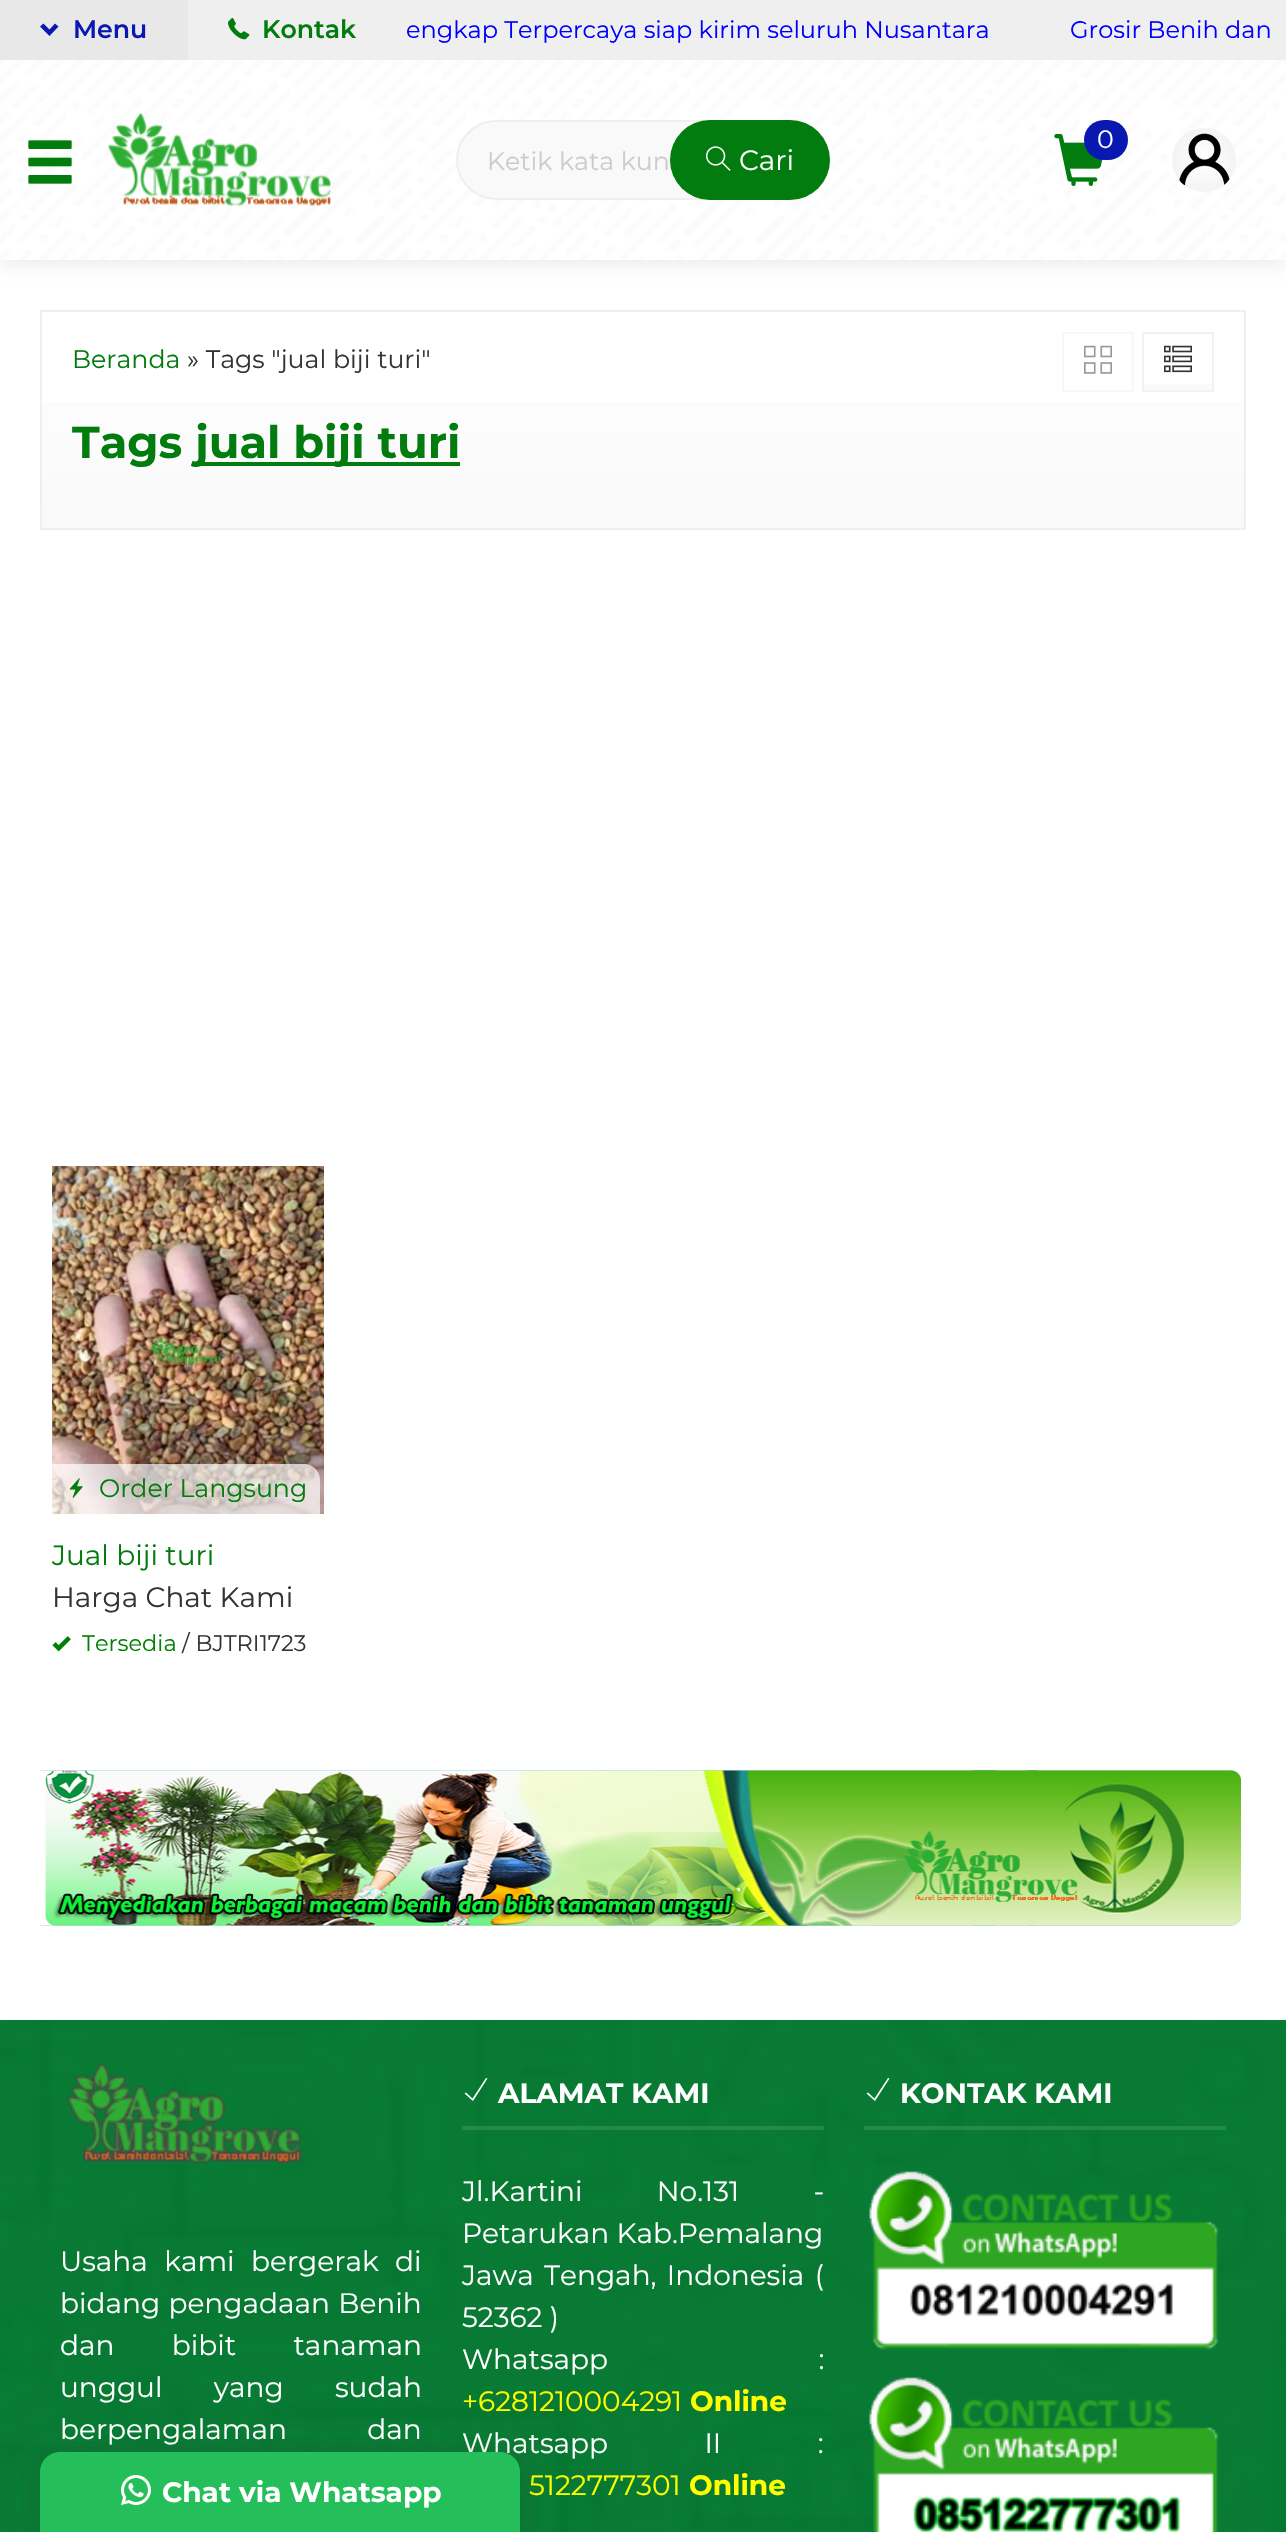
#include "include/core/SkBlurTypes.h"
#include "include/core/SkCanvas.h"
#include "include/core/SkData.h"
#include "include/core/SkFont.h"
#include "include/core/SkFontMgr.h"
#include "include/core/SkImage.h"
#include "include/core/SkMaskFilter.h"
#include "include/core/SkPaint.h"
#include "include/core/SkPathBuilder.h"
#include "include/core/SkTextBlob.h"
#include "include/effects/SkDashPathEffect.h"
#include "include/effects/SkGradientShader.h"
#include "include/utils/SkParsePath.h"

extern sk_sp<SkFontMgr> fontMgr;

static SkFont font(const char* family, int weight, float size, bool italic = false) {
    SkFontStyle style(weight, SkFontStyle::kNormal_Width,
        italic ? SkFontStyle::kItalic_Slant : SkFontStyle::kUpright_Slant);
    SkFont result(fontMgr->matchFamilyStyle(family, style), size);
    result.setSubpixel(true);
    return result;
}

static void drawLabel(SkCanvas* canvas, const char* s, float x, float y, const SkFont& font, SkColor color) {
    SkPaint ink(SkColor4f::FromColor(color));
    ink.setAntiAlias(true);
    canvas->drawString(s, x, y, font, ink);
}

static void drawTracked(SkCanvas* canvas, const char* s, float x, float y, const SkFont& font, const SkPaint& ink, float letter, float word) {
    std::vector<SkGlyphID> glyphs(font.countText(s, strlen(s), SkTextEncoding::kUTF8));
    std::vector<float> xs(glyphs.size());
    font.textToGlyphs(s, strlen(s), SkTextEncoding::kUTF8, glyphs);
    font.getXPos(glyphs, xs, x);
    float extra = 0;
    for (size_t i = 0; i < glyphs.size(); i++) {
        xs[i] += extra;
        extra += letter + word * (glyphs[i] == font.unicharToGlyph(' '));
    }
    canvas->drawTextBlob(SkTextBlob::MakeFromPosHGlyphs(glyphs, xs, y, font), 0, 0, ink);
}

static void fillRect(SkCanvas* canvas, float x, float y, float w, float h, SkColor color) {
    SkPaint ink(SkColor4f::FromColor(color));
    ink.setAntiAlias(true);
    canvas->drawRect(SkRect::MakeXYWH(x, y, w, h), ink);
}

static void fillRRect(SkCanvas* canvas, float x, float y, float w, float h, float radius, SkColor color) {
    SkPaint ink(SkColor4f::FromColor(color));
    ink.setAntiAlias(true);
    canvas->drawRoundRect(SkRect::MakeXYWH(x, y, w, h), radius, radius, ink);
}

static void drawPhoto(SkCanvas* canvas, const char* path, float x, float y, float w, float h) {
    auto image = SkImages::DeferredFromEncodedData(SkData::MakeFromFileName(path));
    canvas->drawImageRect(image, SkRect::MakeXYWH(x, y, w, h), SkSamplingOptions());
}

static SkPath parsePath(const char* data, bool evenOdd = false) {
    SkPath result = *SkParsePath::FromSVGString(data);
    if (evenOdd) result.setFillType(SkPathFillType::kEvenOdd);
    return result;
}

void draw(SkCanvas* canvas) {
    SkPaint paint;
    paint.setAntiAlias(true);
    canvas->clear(0xFFFFFFFF);
    paint.setColor(0x14000000);
    paint.setMaskFilter(SkMaskFilter::MakeBlur(kNormal_SkBlurStyle, 8));
    canvas->drawRect(SkRect::MakeXYWH(0, 4, 1286, 260), paint);
    paint.setMaskFilter(nullptr);
    fillRect(canvas, 188, 0, 1098, 60, 0xFFEFEFEF);
    fillRect(canvas, 0, 0, 188, 60, 0xFFE8E8E8);
    paint.setColor(0xFF0A18B2);
    canvas->drawPath(parsePath("M58.5 26.5L49.5 36L40 26.5L43.5 23.5L49.5 29.5L55 23.5Z"), paint);
    SkFont font1 = font("Montserrat", 600, 25.25f);
    drawLabel(canvas, "Menu", 73, 38, font1, 0xFF0A18B2);
    drawPhoto(canvas, "assets/img1.png", 228, 17, 22, 23);
    drawLabel(canvas, "Kontak", 262, 38, font1, 0xFF027C0E);
    SkFont font2 = font("Montserrat", 400, 24);
    drawLabel(canvas, "engkap Terpercaya siap kirim seluruh Nusantara", 406, 38, font2, 0xFF0000FF);
    drawLabel(canvas, "Grosir Benih dan", 1070, 38, font2, 0xFF0000FF);
    drawPhoto(canvas, "assets/img2.png", 0, 60, 1286, 200);
    drawPhoto(canvas, "assets/img3.png", 28, 140, 44, 44);
    drawPhoto(canvas, "assets/img4.png", 108, 113, 223, 93);
    drawPhoto(canvas, "assets/img5.png", 1054, 134, 49, 52);
    fillRRect(canvas, 1084, 120, 44, 40, 20, 0xFF0A18B2);
    SkFont font3 = font("Montserrat", 400, 25.25f);
    drawLabel(canvas, "0", 1097, 148, font3, 0xFFFFFFFF);
    paint.setColor(0xFFFFFFFF);
    canvas->drawCircle(1204, 160, 32, paint);
    drawPhoto(canvas, "assets/img6.png", 1172, 128, 64, 64);
    paint.setColor(0xFFF9F9F9);
    canvas->drawRoundRect(SkRect::MakeXYWH(457, 121, 372, 78), 39, 39, paint);
    paint.setStroke(true);
    paint.setStrokeWidth(2);
    paint.setColor(0xFFEFEFEF);
    canvas->drawRoundRect(SkRect::MakeXYWH(457, 121, 372, 78), 39, 39, paint);
    drawLabel(canvas, "Ketik kata kun", 487, 170, font3, 0xFFCCCCCC);
    fillRRect(canvas, 670, 120, 160, 80, 40, 0xFF027C0E);
    drawPhoto(canvas, "assets/img7.png", 706, 146, 25, 25);
    SkFont font4 = font("Montserrat", 400, 28);
    drawLabel(canvas, "Cari", 739, 170, font4, 0xFFFFFFFF);
    paint.setStroke(false);
    {
        const SkColor colors[] = {0xFFFFFFFF, 0xFFF9F9F9};
        const float stops[] = {0, 1};
        const SkPoint ends[] = {{643, 312}, {643, 528}};
        paint.setShader(SkGradientShader::MakeLinear(ends, colors, stops, 2, SkTileMode::kClamp));
        paint.setAlpha(255);
    }
    canvas->drawRect(SkRect::MakeXYWH(42, 402, 1202, 126), paint);
    paint.setStroke(true);
    paint.setShader(nullptr);
    paint.setColor(0xFFEFEFEF);
    canvas->drawRect(SkRect::MakeXYWH(41, 311, 1204, 218), paint);
    drawLabel(canvas, "Beranda", 72, 368, font3, 0xFF027C0E);
    drawLabel(canvas, "» Tags \"jual biji turi\"", 187, 368, font3, 0xFF333333);
    paint.setColor(0xFFF8F8F8);
    canvas->drawRect(SkRect::MakeXYWH(1063, 333, 70, 58), paint);
    paint.setStroke(false);
    {
        const SkColor colors[] = {0xFFFAFAFA, 0xFFFFFFFF};
        const float stops[] = {0, 1};
        const SkPoint ends[] = {{1178, 390}, {1178, 334}};
        paint.setShader(SkGradientShader::MakeLinear(ends, colors, stops, 2, SkTileMode::kClamp));
        paint.setAlpha(255);
    }
    canvas->drawRect(SkRect::MakeXYWH(1144, 384, 68, 6), paint);
    paint.setStroke(true);
    paint.setShader(nullptr);
    paint.setColor(0xFFF2F2F2);
    canvas->drawRect(SkRect::MakeXYWH(1143, 333, 70, 58), paint);
    drawPhoto(canvas, "assets/img8.png", 1084, 345, 28, 29);
    drawPhoto(canvas, "assets/img9.png", 1164, 345, 28, 28);
    SkFont font5 = font("Montserrat", 700, 44.75f);
    drawLabel(canvas, "Tags", 72, 458, font5, 0xFF027C0E);
    fillRect(canvas, 196, 462, 264, 4, 0xFF027C0E);
    drawLabel(canvas, "jual biji turi", 195, 458, font5, 0xFF027C0E);
    drawPhoto(canvas, "assets/img10.png", 52, 1166, 272, 348);
    paint.setStroke(false);
    paint.setColor(0xB0FFFFFF);
    canvas->drawPath(parsePath("M52 1464H304C313 1464 320 1471 320 1480V1514H52Z"), paint);
    drawPhoto(canvas, "assets/img11.png", 69, 1478, 14, 20);
    drawLabel(canvas, "Order Langsung", 99, 1497, font3, 0xFF027C0E);
    drawLabel(canvas, "Jual biji turi", 52, 1565, font4, 0xFF027C0E);
    drawLabel(canvas, "Harga Chat Kami", 52, 1607, font4, 0xFF333333);
    drawPhoto(canvas, "assets/img12.png", 52, 1636, 19, 16);
    SkFont font6 = font("Montserrat", 400, 22.5f);
    drawLabel(canvas, "Tersedia", 82, 1651, font6, 0xFF008000);
    drawLabel(canvas, "/ BJTRI1723", 182, 1651, font6, 0xFF333333);
    drawPhoto(canvas, "assets/img13.png", 40, 1770, 1201, 156);
    fillRect(canvas, 0, 2020, 1286, 512, 0xFF027C0E);
    drawPhoto(canvas, "assets/img14.png", 0, 2020, 1286, 512);
    fillRect(canvas, 462, 2126, 362, 4, 0x1CFFFFFF);
    paint.setColor(0xFFFFFFFF);
    canvas->drawPath(parsePath("M487.5 2078.5L473 2101L464.5 2093.5L466 2092.5L472.5 2098.5L486 2078Z"), paint);
    SkFont font7 = font("Montserrat", 700, 28);
    drawLabel(canvas, "ALAMAT KAMI", 498, 2103, font7, 0xFFFFFFFF);
    drawTracked(canvas, "Jl.Kartini No.131 -", 462, 2201, font4, paint, 0, 67);
    drawLabel(canvas, "Petarukan Kab.Pemalang", 462, 2243, font4, 0xFFFFFFFF);
    drawTracked(canvas, "Jawa Tengah, Indonesia (", 462, 2285, font4, paint, 0, 3);
    drawLabel(canvas, "52362 )", 462, 2327, font4, 0xFFFFFFFF);
    drawTracked(canvas, "Whatsapp :", 462, 2369, font4, paint, 0, 203);
    drawLabel(canvas, "+6281210004291", 462, 2411, font4, 0xFFFFFF00);
    drawLabel(canvas, "Online", 690, 2411, font7, 0xFFFFFF00);
    drawTracked(canvas, "Whatsapp II :", 462, 2453, font4, paint, 0, 89);
    drawLabel(canvas, "5122777301", 529, 2495, font4, 0xFFFFFF00);
    drawLabel(canvas, "Online", 689, 2495, font7, 0xFFFFFF00);
    fillRect(canvas, 864, 2126, 362, 4, 0x1CFFFFFF);
    canvas->drawPath(parsePath("M889.5 2078.5L875 2101L866.5 2093.5L868 2092.5L874.5 2098.5L888 2078Z"), paint);
    drawLabel(canvas, "KONTAK KAMI", 900, 2103, font7, 0xFFFFFFFF);
    drawPhoto(canvas, "assets/img15.png", 869, 2171, 350, 179);
    drawPhoto(canvas, "assets/img16.png", 869, 2377, 350, 155);
    drawPhoto(canvas, "assets/img17.png", 67, 2063, 235, 101);
    drawTracked(canvas, "Usaha kami bergerak di", 60, 2271, font4, paint, 0, 9);
    drawTracked(canvas, "bidang pengadaan Benih", 60, 2313, font4, paint, 0, 1);
    drawTracked(canvas, "dan bibit tanaman", 60, 2355, font4, paint, 0, 50);
    drawTracked(canvas, "unggul yang sudah", 60, 2397, font4, paint, 0, 44);
    drawTracked(canvas, "berpengalaman dan", 60, 2439, font4, paint, 0, 73);
    paint.setColor(0x12333333);
    paint.setMaskFilter(SkMaskFilter::MakeBlur(kNormal_SkBlurStyle, 6));
    canvas->drawRoundRect(SkRect::MakeXYWH(28, 2444, 504, 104), 32, 32, paint);
    paint.setMaskFilter(nullptr);
    paint.setColor(0xFF24BE5B);
    canvas->drawPath(parsePath("M60 2452H500C511 2452 520 2461 520 2472V2532H40V2472C40 2461 49 2452 60 2452Z"), paint);
    drawPhoto(canvas, "assets/img18.png", 121, 2475, 30, 30);
    drawLabel(canvas, "Chat via Whatsapp", 162, 2502, font7, 0xFFFFFFFF);
}
